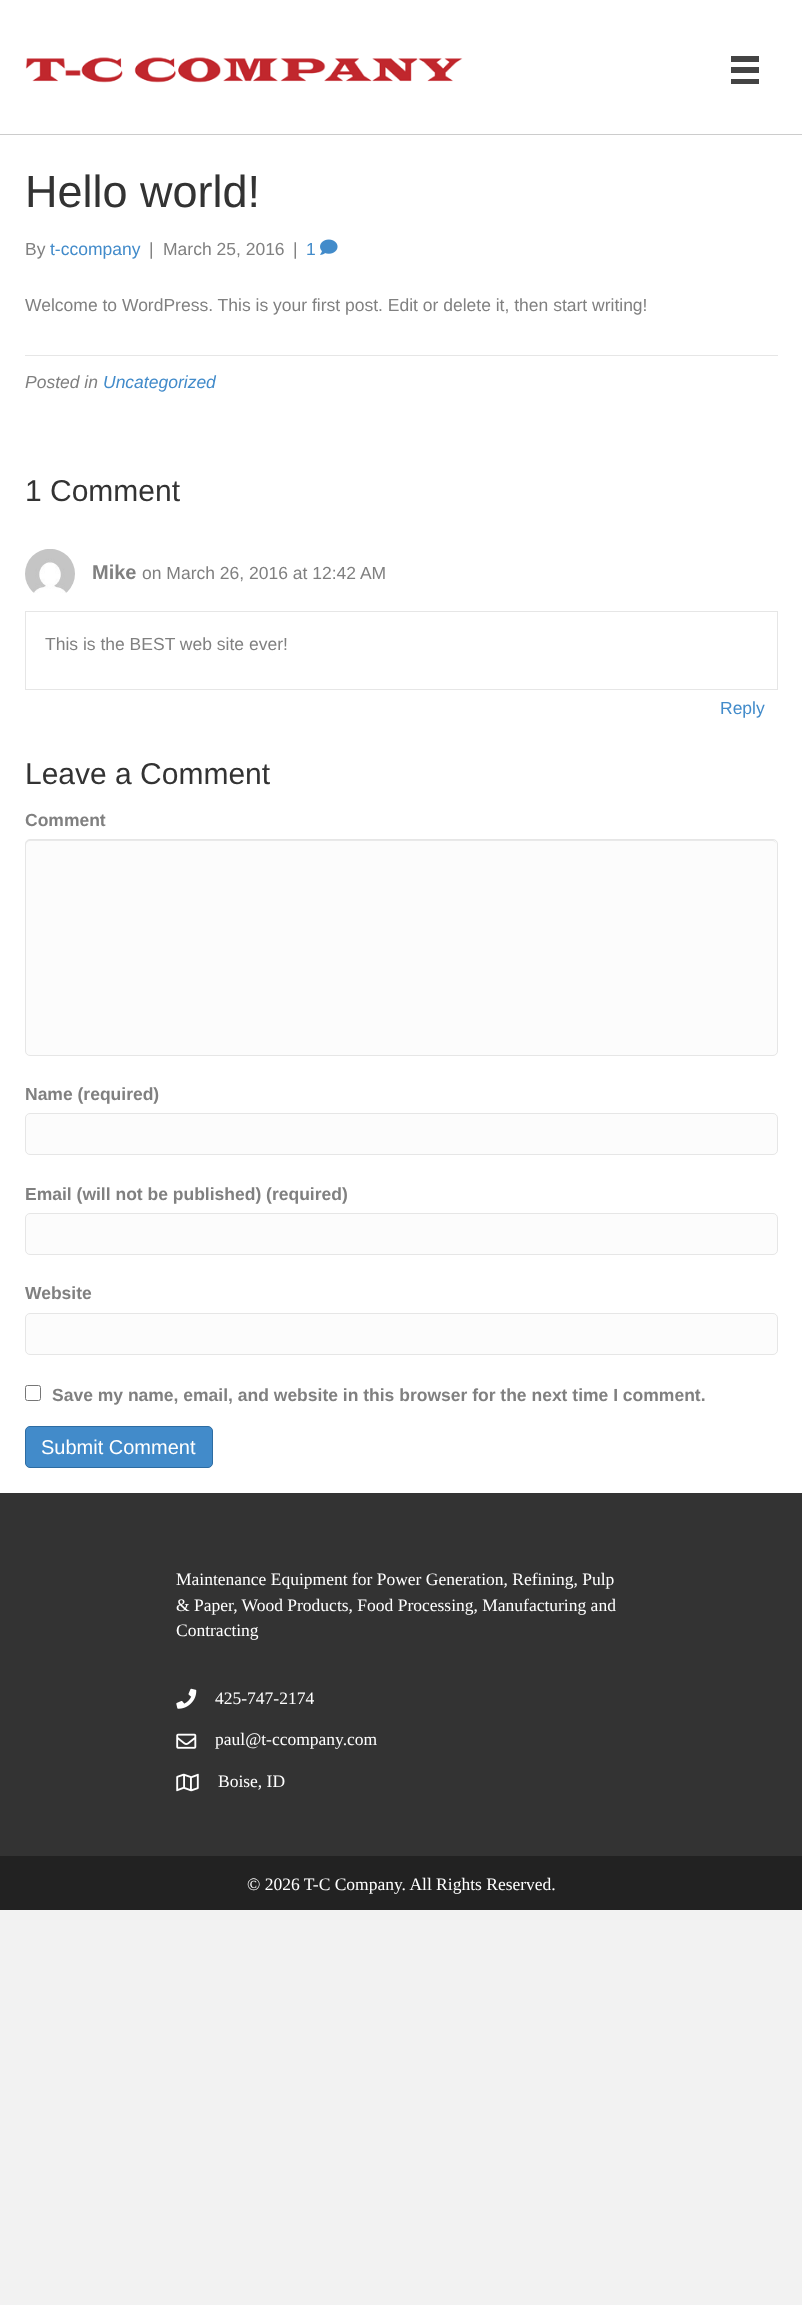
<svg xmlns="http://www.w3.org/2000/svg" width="802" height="2305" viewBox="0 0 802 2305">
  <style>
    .t1 { font: 45px Liberation Sans; fill: #333; }
    .t2 { font: 17.5px Liberation Sans; fill: #808080; }
    .t3 { font: 17.5px Liberation Sans; fill: #428bca; }
    .t4 { font: italic 17.5px Liberation Sans; fill: #808080; }
    .t5 { font: italic 17.5px Liberation Sans; fill: #428bca; }
    .t6 { font: 30px Liberation Sans; fill: #333; }
    .t7 { font: bold 20px Liberation Sans; fill: #808080; }
    .t8 { font: bold 17.5px Liberation Sans; fill: #808080; }
    .t9 { font: 20px Liberation Sans; fill: #fff; }
    .t10 { font: 17.5px Liberation Serif; fill: #fff; }
  </style>
  <rect width="100%" height="100%" fill="#f2f2f2"/>
  <rect x="0" y="0" width="802" height="134" fill="#fff"/>
  <rect x="0" y="134" width="802" height="1" fill="#ccc"/>
  <image x="25" y="57" width="438" height="26" href="images/1.png"/>
  <rect x="731" y="56" width="28" height="6" fill="#444"/>
  <rect x="731" y="67" width="28" height="6" fill="#444"/>
  <rect x="731" y="79" width="28" height="5" fill="#444"/>
  <rect x="0" y="135" width="802" height="1358" fill="#fff"/>
  <text x="25" y="207" class="t1">Hello world!</text>
  <text x="25" y="255" class="t2">By</text>
  <text x="50" y="255" class="t3">t-ccompany</text>
  <text x="149" y="255" class="t2">|</text>
  <text x="163" y="255" class="t2">March 25, 2016</text>
  <text x="293" y="255" class="t2">|</text>
  <text x="306" y="255" class="t3">1</text>
  <image x="320" y="239" width="18" height="16" href="images/2.png"/>
  <text x="25" y="311" class="t2">Welcome to WordPress. This is your first post. Edit or delete it, then start writing!</text>
  <rect x="25" y="355" width="753" height="1" fill="#e6e6e6"/>
  <text x="25" y="388" class="t4">Posted in</text>
  <text x="103" y="388" class="t5">Uncategorized</text>
  <text x="25" y="501" class="t6">1 Comment</text>
  <image x="25" y="549" width="50" height="44" href="images/3.png"/>
  <text x="92" y="579" class="t7">Mike</text>
  <text x="142" y="579" class="t2">on March 26, 2016 at 12:42 AM</text>
  <rect x="25.5" y="611.5" width="752" height="78" fill="none" stroke="#e6e6e6"/>
  <text x="45" y="650" class="t2">This is the BEST web site ever!</text>
  <text x="720" y="714" class="t3">Reply</text>
  <text x="25" y="784" class="t6">Leave a Comment</text>
  <text x="25" y="826" class="t8">Comment</text>
  <rect x="25" y="839" width="753" height="217" rx="5" fill="#fcfcfc"/>
  <path d="M30 841H772C775 841 776 843 776 845C776 842 775 840 772 840H30C27 840 26 842 26 845C26 843 28 841 30 841Z" fill="#e9e9e9"/>
  <rect x="25.5" y="839.5" width="752" height="216" rx="4.5" fill="none" stroke="#e6e6e6"/>
  <text x="25" y="1100" class="t8">Name (required)</text>
  <rect x="25.5" y="1113.5" width="752" height="41" rx="4.5" fill="#fcfcfc" stroke="#e6e6e6"/>
  <text x="25" y="1200" class="t8">Email (will not be published) (required)</text>
  <rect x="25.5" y="1213.5" width="752" height="41" rx="4.5" fill="#fcfcfc" stroke="#e6e6e6"/>
  <text x="25" y="1299" class="t8">Website</text>
  <rect x="25.5" y="1313.5" width="752" height="41" rx="4.5" fill="#fcfcfc" stroke="#e6e6e6"/>
  <rect x="25.5" y="1385.5" width="15" height="15" rx="2" fill="none" stroke="#767676"/>
  <text x="52" y="1401" class="t8">Save my name, email, and website in this browser for the next time I comment.</text>
  <rect x="25.5" y="1426.5" width="187" height="41" rx="4.5" fill="#428bca" stroke="#2d6ca2"/>
  <text x="41" y="1454" class="t9">Submit Comment</text>
  <rect x="0" y="1493" width="802" height="363" fill="#333"/>
  <text x="176" y="1585" class="t10">Maintenance Equipment for Power Generation, Refining, Pulp</text>
  <text x="176" y="1611" class="t10">&amp; Paper, Wood Products, Food Processing, Manufacturing and</text>
  <text x="176" y="1636" class="t10">Contracting</text>
  <image x="176" y="1688" width="21" height="21" href="images/4.png"/>
  <text x="215" y="1704" class="t10">425-747-2174</text>
  <image x="176" y="1733" width="21" height="16" href="images/5.png"/>
  <text x="215" y="1745" class="t10">paul@t-ccompany.com</text>
  <image x="176" y="1773" width="23" height="19" href="images/6.png"/>
  <text x="218" y="1787" class="t10">Boise, ID</text>
  <rect x="0" y="1856" width="802" height="54" fill="#222"/>
  <text x="247" y="1890" class="t10">© 2026 T-C Company. All Rights Reserved.</text>
</svg>
